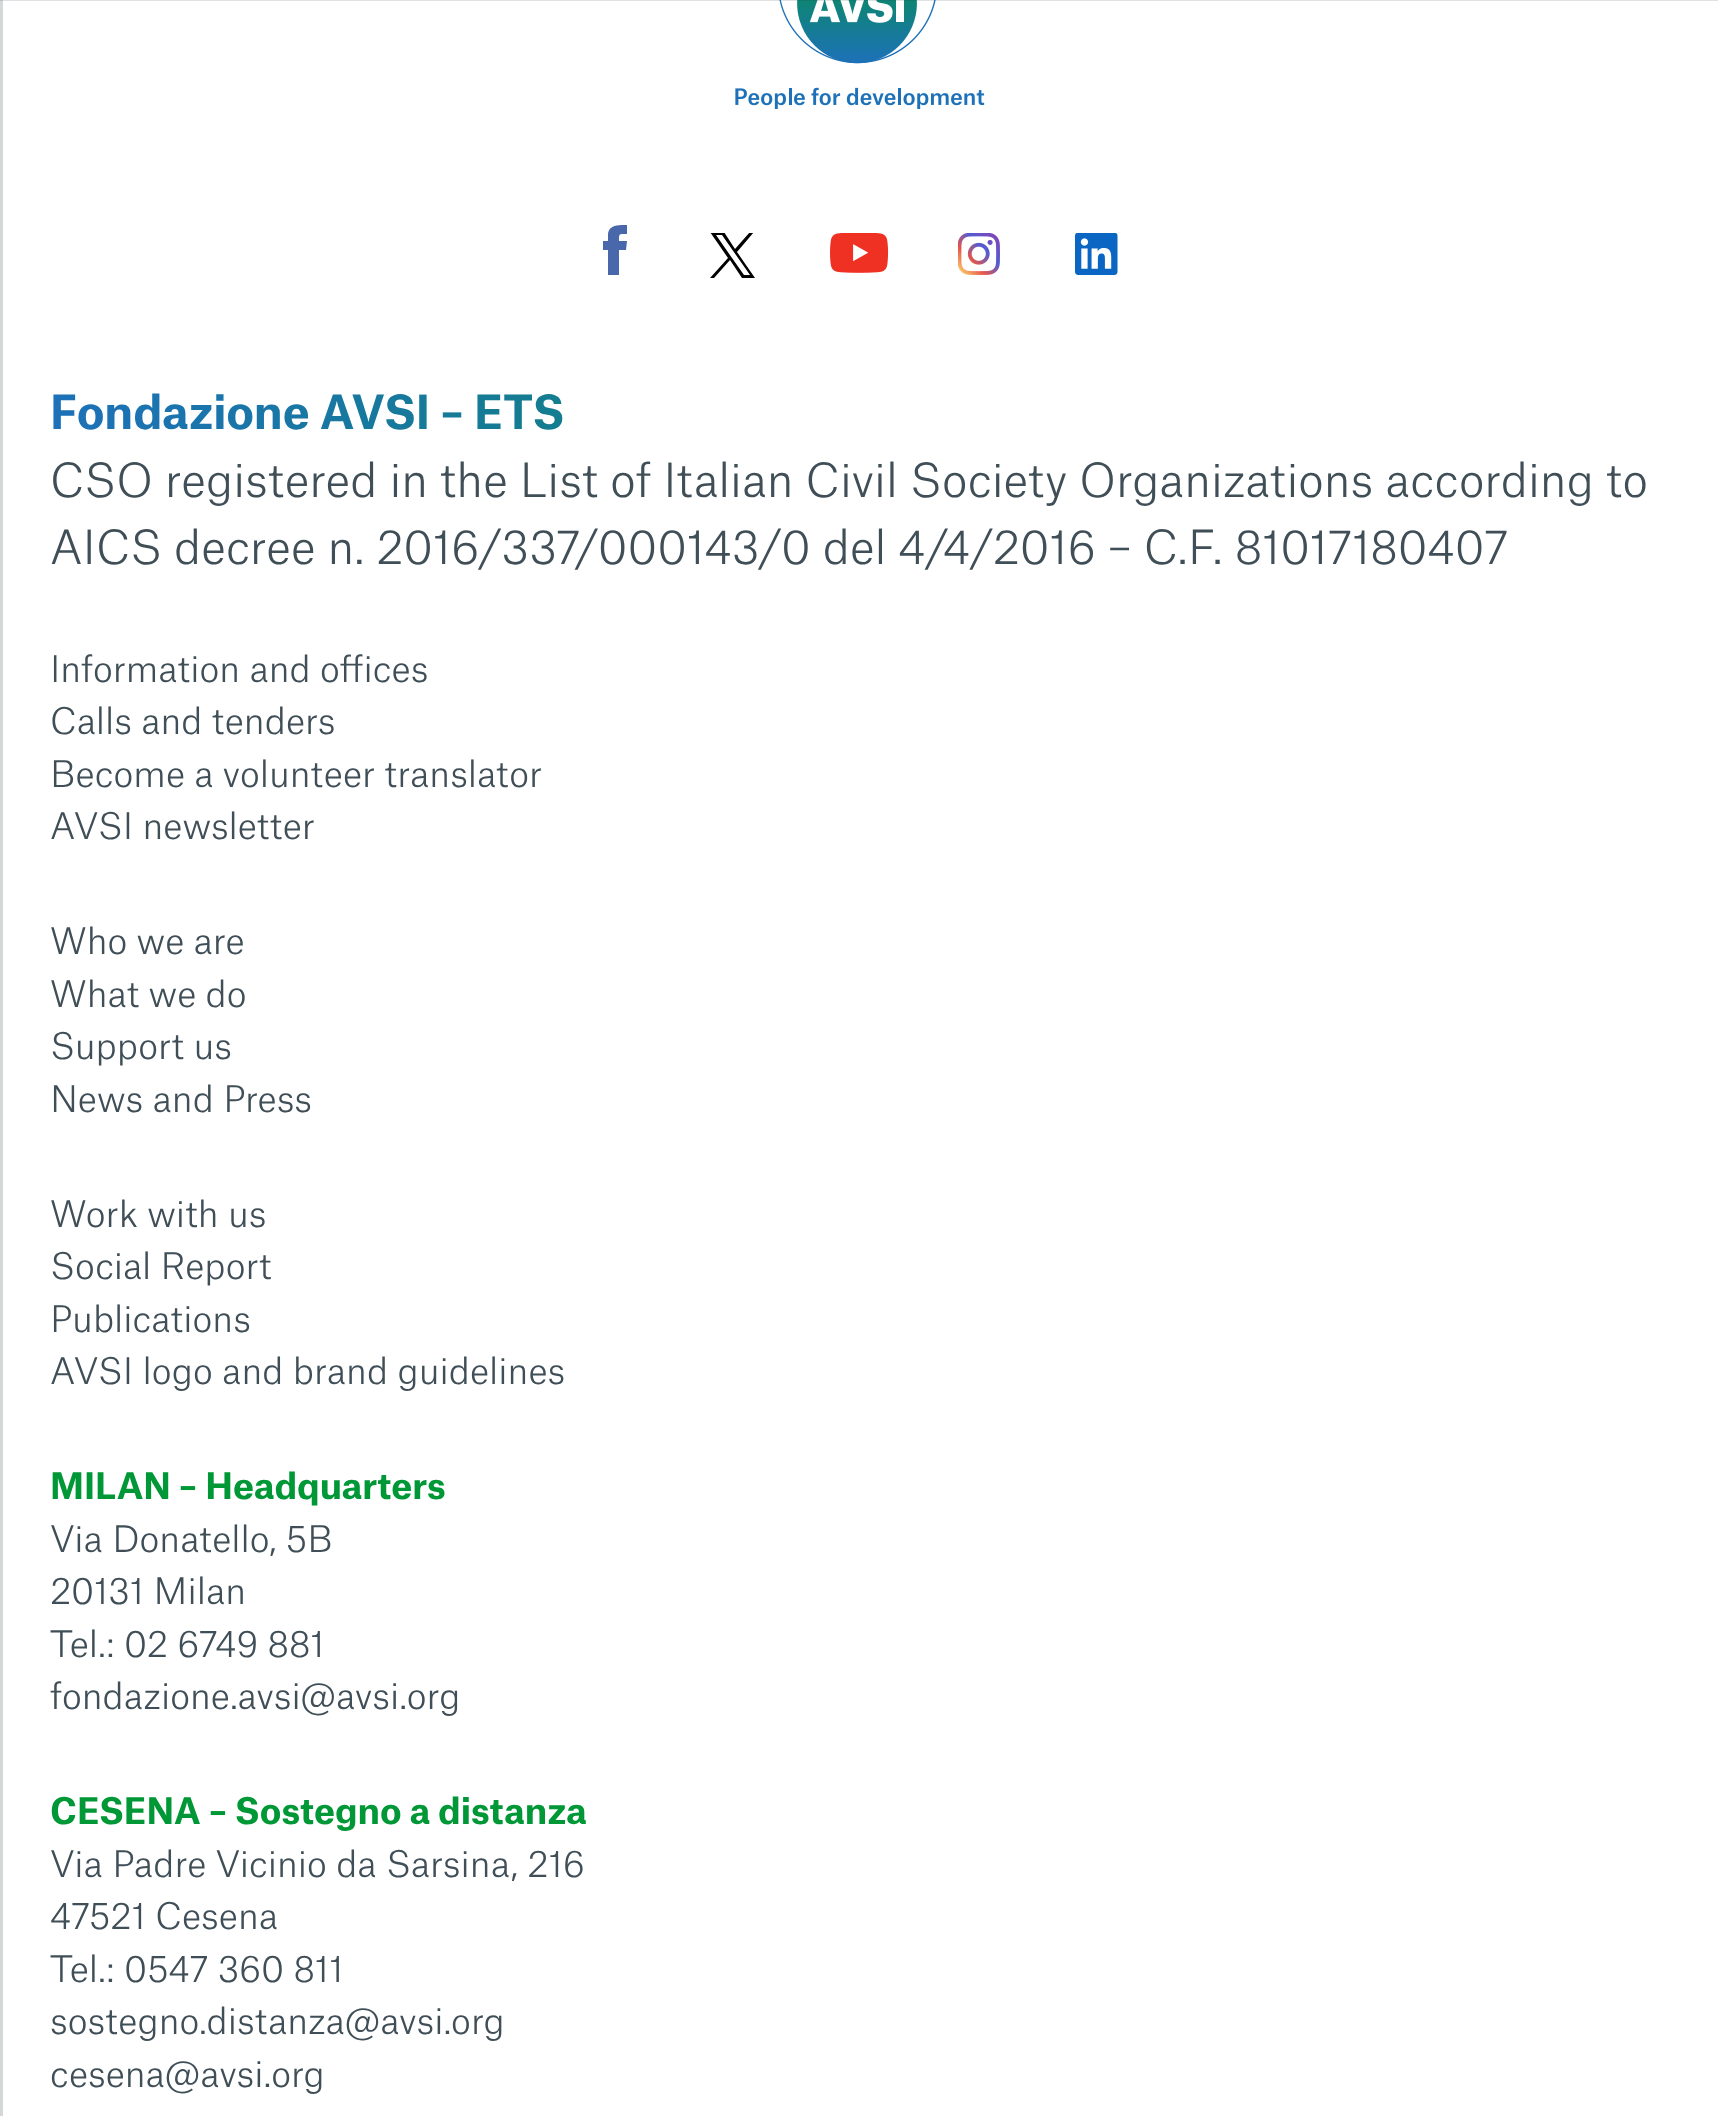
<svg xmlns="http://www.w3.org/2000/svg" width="1718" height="2116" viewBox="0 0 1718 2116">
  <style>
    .t1 { font: bold 45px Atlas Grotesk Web; fill: url(#g1); }
    .t2 { font: 300 45px Atlas Grotesk Web; fill: #404f57; }
    .t3 { font: 300 35px Atlas Grotesk Web; fill: #404f57; }
    .t4 { font: bold 35px Atlas Grotesk Web; fill: #009736; }
  </style>
  <defs>
    <clipPath id="clip1"><rect x="603" y="225" width="25" height="50"/></clipPath>
    <clipPath id="clip2"><rect x="705" y="233" width="55" height="45"/></clipPath>
    <linearGradient id="g1" gradientUnits="userSpaceOnUse" x1="50" y1="411" x2="1670" y2="411"><stop offset="0" stop-color="#1d71b8"/><stop offset="1" stop-color="#009736"/></linearGradient>
  </defs>
  <rect width="100%" height="100%" fill="#fff"/>
  <rect x="0" y="0" width="3" height="2116" fill="#d5d8d9"/>
  <image x="735" y="0" width="250" height="109" href="images/1.png"/>
  <rect x="0" y="0" width="1718" height="1" fill="#2b3b4426"/>
  <g clip-path="url(#clip1)">
    <path d="M608 235C608 224 620 225 627 225V234C619 234 619 233 619 241H627L626 250H619V275H608V250H602V241H608Z" fill="#4868ab"/>
  </g>
  <g clip-path="url(#clip2)">
    <path d="M737 252L754 232H750L735 249L724 232H710L728 258L710 278H714L730 260L742 278H755ZM732 258L716 235H722L750 275H744Z" fill="#000"/>
  </g>
  <image x="830" y="233" width="59" height="40" href="images/2.png"/>
  <image x="958" y="233" width="42" height="42" href="images/3.png"/>
  <image x="1075" y="233" width="43" height="42" href="images/4.png"/>
  <text x="50" y="429" class="t1">Fondazione AVSI – ETS</text>
  <text x="50" y="497" class="t2">CSO registered in the List of Italian Civil Society Organizations according to</text>
  <text x="50" y="564" class="t2">AICS decree n. 2016/337/000143/0 del 4/4/2016 – C.F. 81017180407</text>
  <text x="50" y="682" class="t3">Information and offices</text>
  <text x="50" y="734" class="t3">Calls and tenders</text>
  <text x="50" y="787" class="t3">Become a volunteer translator</text>
  <text x="50" y="839" class="t3">AVSI newsletter</text>
  <text x="50" y="954" class="t3">Who we are</text>
  <text x="50" y="1007" class="t3">What we do</text>
  <text x="50" y="1059" class="t3">Support us</text>
  <text x="50" y="1112" class="t3">News and Press</text>
  <text x="50" y="1227" class="t3">Work with us</text>
  <text x="50" y="1279" class="t3">Social Report</text>
  <text x="50" y="1332" class="t3">Publications</text>
  <text x="50" y="1384" class="t3">AVSI logo and brand guidelines</text>
  <text x="50" y="1499" class="t4">MILAN – Headquarters</text>
  <text x="50" y="1552" class="t3">Via Donatello, 5B</text>
  <text x="50" y="1604" class="t3">20131 Milan</text>
  <text x="50" y="1657" class="t3">Tel.: 02 6749 881</text>
  <text x="50" y="1709" class="t3">fondazione.avsi@avsi.org</text>
  <text x="50" y="1824" class="t4">CESENA – Sostegno a distanza</text>
  <text x="50" y="1877" class="t3">Via Padre Vicinio da Sarsina, 216</text>
  <text x="50" y="1929" class="t3">47521 Cesena</text>
  <text x="50" y="1982" class="t3">Tel.: 0547 360 811</text>
  <text x="50" y="2034" class="t3">sostegno.distanza@avsi.org</text>
  <text x="50" y="2087" class="t3">cesena@avsi.org</text>
</svg>
